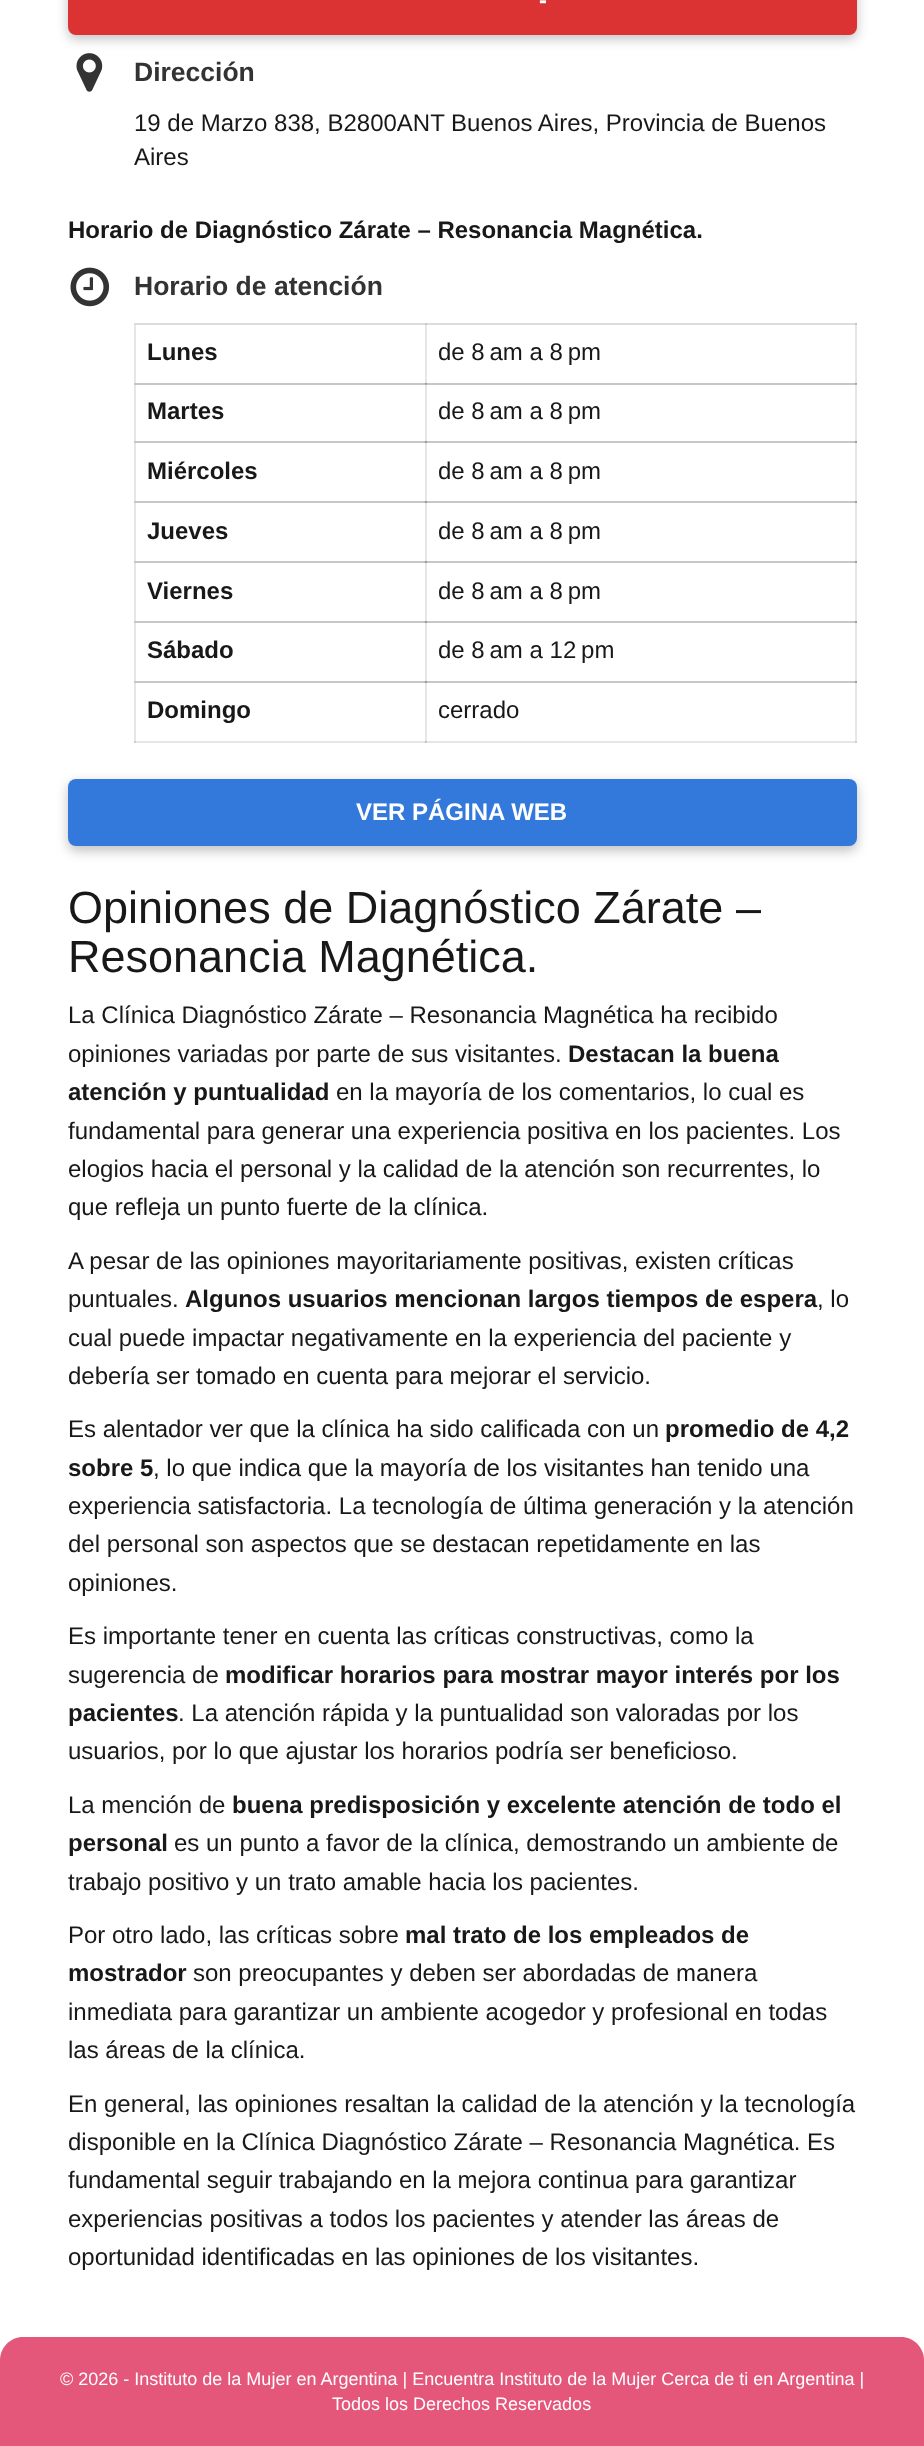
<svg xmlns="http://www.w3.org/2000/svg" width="924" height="2446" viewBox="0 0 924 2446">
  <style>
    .t1 { font: bold 24px Liberation Sans; fill: #fff; }
    .t2 { font: bold 26.5px Liberation Sans; fill: #333; }
    .t3 { font: 24px Liberation Sans; fill: #181818; }
    .t4 { font: bold 24px Liberation Sans; fill: #181818; }
    .t5 { font: 45px Liberation Sans; fill: #181818; }
    .t6 { font: 18px Liberation Sans; fill: #fff; }
  </style>
  <rect width="100%" height="100%" fill="#fff"/>
  <rect x="425" y="323" width="2" height="360" fill="#e6e6e6"/>
  <rect x="855" y="323" width="2" height="360" fill="#e6e6e6"/>
  <rect x="134" y="741" width="292" height="2" fill="#e6e6e6"/>
  <rect x="425" y="681" width="2" height="62" fill="#e6e6e6"/>
  <rect x="425" y="741" width="432" height="2" fill="#e6e6e6"/>
  <rect x="425" y="741" width="2" height="2" fill="#cfcfcf"/>
  <rect x="425" y="741" width="1" height="2" fill="#bababa"/>
  <rect x="855" y="681" width="2" height="62" fill="#e6e6e6"/>
  <rect x="855" y="741" width="2" height="2" fill="#cfcfcf"/>
  <rect x="134" y="323" width="2" height="420" fill="#e6e6e6"/>
  <rect x="134" y="741" width="2" height="2" fill="#cfcfcf"/>
  <rect x="68" y="-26" width="789" height="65" rx="8" fill="#0000003d" filter="blur(6px)"/>
  <rect x="68" y="-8" width="789" height="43" rx="8" fill="#db3333"/>
  <text x="539" y="8" class="t1">-</text>
  <image x="76" y="53" width="27" height="39" href="images/1.png"/>
  <text x="134" y="81" class="t2">Dirección</text>
  <text x="134" y="131" class="t3">19 de Marzo 838, B2800ANT Buenos Aires, Provincia de Buenos</text>
  <text x="134" y="165" class="t3">Aires</text>
  <text x="68" y="238" class="t4">Horario de Diagnóstico Zárate – Resonancia Magnética.</text>
  <image x="70" y="267" width="40" height="40" href="images/2.png"/>
  <text x="134" y="295" class="t2">Horario de atención</text>
  <rect x="425" y="323" width="432" height="2" fill="#ddd"/>
  <rect x="425" y="323" width="2" height="2" fill="#c7c7c7"/>
  <rect x="134" y="323" width="292" height="2" fill="#ddd"/>
  <rect x="425" y="323" width="1" height="2" fill="#c7c7c7"/>
  <text x="147" y="360" class="t4">Lunes</text>
  <rect x="855" y="323" width="2" height="2" fill="#c7c7c7"/>
  <text x="438" y="360" class="t3">de 8 am a 8 pm</text>
  <rect x="425" y="383" width="432" height="2" fill="#c7c7c7"/>
  <rect x="425" y="384" width="2" height="1" fill="#b3b3b3"/>
  <rect x="425" y="383" width="2" height="1" fill="#a1a1a1"/>
  <rect x="134" y="383" width="292" height="2" fill="#c7c7c7"/>
  <rect x="425" y="383" width="1" height="2" fill="#a1a1a1"/>
  <rect x="425" y="383" width="1" height="1" fill="#919191"/>
  <text x="147" y="419" class="t4">Martes</text>
  <rect x="855" y="384" width="2" height="1" fill="#b3b3b3"/>
  <rect x="855" y="383" width="2" height="1" fill="#a1a1a1"/>
  <text x="438" y="419" class="t3">de 8 am a 8 pm</text>
  <rect x="425" y="441" width="432" height="2" fill="#c7c7c7"/>
  <rect x="425" y="441" width="2" height="2" fill="#a1a1a1"/>
  <rect x="134" y="441" width="292" height="2" fill="#c7c7c7"/>
  <rect x="425" y="441" width="1" height="2" fill="#919191"/>
  <text x="147" y="479" class="t4">Miércoles</text>
  <rect x="855" y="441" width="2" height="2" fill="#a1a1a1"/>
  <text x="438" y="479" class="t3">de 8 am a 8 pm</text>
  <rect x="425" y="501" width="432" height="2" fill="#c7c7c7"/>
  <rect x="425" y="501" width="2" height="2" fill="#a1a1a1"/>
  <rect x="134" y="501" width="292" height="2" fill="#c7c7c7"/>
  <rect x="425" y="501" width="1" height="2" fill="#919191"/>
  <text x="147" y="539" class="t4">Jueves</text>
  <rect x="855" y="501" width="2" height="2" fill="#a1a1a1"/>
  <text x="438" y="539" class="t3">de 8 am a 8 pm</text>
  <rect x="425" y="561" width="432" height="2" fill="#c7c7c7"/>
  <rect x="425" y="561" width="2" height="2" fill="#a1a1a1"/>
  <rect x="134" y="561" width="292" height="2" fill="#c7c7c7"/>
  <rect x="425" y="561" width="1" height="2" fill="#919191"/>
  <text x="147" y="599" class="t4">Viernes</text>
  <rect x="855" y="561" width="2" height="2" fill="#a1a1a1"/>
  <text x="438" y="599" class="t3">de 8 am a 8 pm</text>
  <rect x="425" y="621" width="432" height="2" fill="#c7c7c7"/>
  <rect x="425" y="621" width="2" height="2" fill="#a1a1a1"/>
  <rect x="134" y="621" width="292" height="2" fill="#c7c7c7"/>
  <rect x="425" y="621" width="1" height="2" fill="#919191"/>
  <text x="147" y="658" class="t4">Sábado</text>
  <rect x="855" y="621" width="2" height="2" fill="#a1a1a1"/>
  <text x="438" y="658" class="t3">de 8 am a 12 pm</text>
  <rect x="425" y="681" width="432" height="2" fill="#c7c7c7"/>
  <rect x="425" y="681" width="2" height="2" fill="#a1a1a1"/>
  <rect x="134" y="681" width="292" height="2" fill="#c7c7c7"/>
  <rect x="425" y="681" width="1" height="2" fill="#919191"/>
  <text x="147" y="718" class="t4">Domingo</text>
  <rect x="855" y="681" width="2" height="2" fill="#a1a1a1"/>
  <text x="438" y="718" class="t3">cerrado</text>
  <rect x="68" y="783" width="789" height="68" rx="8" fill="#0000003d" filter="blur(6px)"/>
  <rect x="68" y="779" width="789" height="67" rx="8" fill="#3379db"/>
  <text x="356" y="820" class="t1">VER PÁGINA WEB</text>
  <text x="68" y="923" class="t5">Opiniones de Diagnóstico Zárate –</text>
  <text x="68" y="972" class="t5">Resonancia Magnética.</text>
  <text x="68" y="1023" class="t3">La Clínica Diagnóstico Zárate – Resonancia Magnética ha recibido</text>
  <text x="68" y="1062" class="t3">opiniones variadas por parte de sus visitantes.</text>
  <text x="568" y="1062" class="t4">Destacan la buena</text>
  <text x="68" y="1100" class="t4">atención y puntualidad</text>
  <text x="336" y="1100" class="t3">en la mayoría de los comentarios, lo cual es</text>
  <text x="68" y="1139" class="t3">fundamental para generar una experiencia positiva en los pacientes. Los</text>
  <text x="68" y="1177" class="t3">elogios hacia el personal y la calidad de la atención son recurrentes, lo</text>
  <text x="68" y="1215" class="t3">que refleja un punto fuerte de la clínica.</text>
  <text x="68" y="1269" class="t3">A pesar de las opiniones mayoritariamente positivas, existen críticas</text>
  <text x="68" y="1307" class="t3">puntuales.</text>
  <text x="185" y="1307" class="t4">Algunos usuarios mencionan largos tiempos de espera</text>
  <text x="817" y="1307" class="t3">, lo</text>
  <text x="68" y="1346" class="t3">cual puede impactar negativamente en la experiencia del paciente y</text>
  <text x="68" y="1384" class="t3">debería ser tomado en cuenta para mejorar el servicio.</text>
  <text x="68" y="1437" class="t3">Es alentador ver que la clínica ha sido calificada con un</text>
  <text x="665" y="1437" class="t4">promedio de 4,2</text>
  <text x="68" y="1476" class="t4">sobre 5</text>
  <text x="153" y="1476" class="t3">, lo que indica que la mayoría de los visitantes han tenido una</text>
  <text x="68" y="1514" class="t3">experiencia satisfactoria. La tecnología de última generación y la atención</text>
  <text x="68" y="1552" class="t3">del personal son aspectos que se destacan repetidamente en las</text>
  <text x="68" y="1591" class="t3">opiniones.</text>
  <text x="68" y="1644" class="t3">Es importante tener en cuenta las críticas constructivas, como la</text>
  <text x="68" y="1683" class="t3">sugerencia de</text>
  <text x="225" y="1683" class="t4">modificar horarios para mostrar mayor interés por los</text>
  <text x="68" y="1721" class="t4">pacientes</text>
  <text x="178" y="1721" class="t3">. La atención rápida y la puntualidad son valoradas por los</text>
  <text x="68" y="1759" class="t3">usuarios, por lo que ajustar los horarios podría ser beneficioso.</text>
  <text x="68" y="1813" class="t3">La mención de</text>
  <text x="232" y="1813" class="t4">buena predisposición y excelente atención de todo el</text>
  <text x="68" y="1851" class="t4">personal</text>
  <text x="174" y="1851" class="t3">es un punto a favor de la clínica, demostrando un ambiente de</text>
  <text x="68" y="1890" class="t3">trabajo positivo y un trato amable hacia los pacientes.</text>
  <text x="68" y="1943" class="t3">Por otro lado, las críticas sobre</text>
  <text x="405" y="1943" class="t4">mal trato de los empleados de</text>
  <text x="68" y="1981" class="t4">mostrador</text>
  <text x="193" y="1981" class="t3">son preocupantes y deben ser abordadas de manera</text>
  <text x="68" y="2020" class="t3">inmediata para garantizar un ambiente acogedor y profesional en todas</text>
  <text x="68" y="2058" class="t3">las áreas de la clínica.</text>
  <text x="68" y="2112" class="t3">En general, las opiniones resaltan la calidad de la atención y la tecnología</text>
  <text x="68" y="2150" class="t3">disponible en la Clínica Diagnóstico Zárate – Resonancia Magnética. Es</text>
  <text x="68" y="2188" class="t3">fundamental seguir trabajando en la mejora continua para garantizar</text>
  <text x="68" y="2227" class="t3">experiencias positivas a todos los pacientes y atender las áreas de</text>
  <text x="68" y="2265" class="t3">oportunidad identificadas en las opiniones de los visitantes.</text>
  <path d="M23 2337H901C913.5 2337 924 2347.5 924 2360V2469H0V2360C0 2347.5 10.5 2337 23 2337Z" fill="#e4567a"/>
  <text x="60" y="2385" class="t6">© 2026 - Instituto de la Mujer en Argentina | Encuentra Instituto de la Mujer Cerca de ti en Argentina |</text>
  <text x="332" y="2410" class="t6">Todos los Derechos Reservados</text>
</svg>
